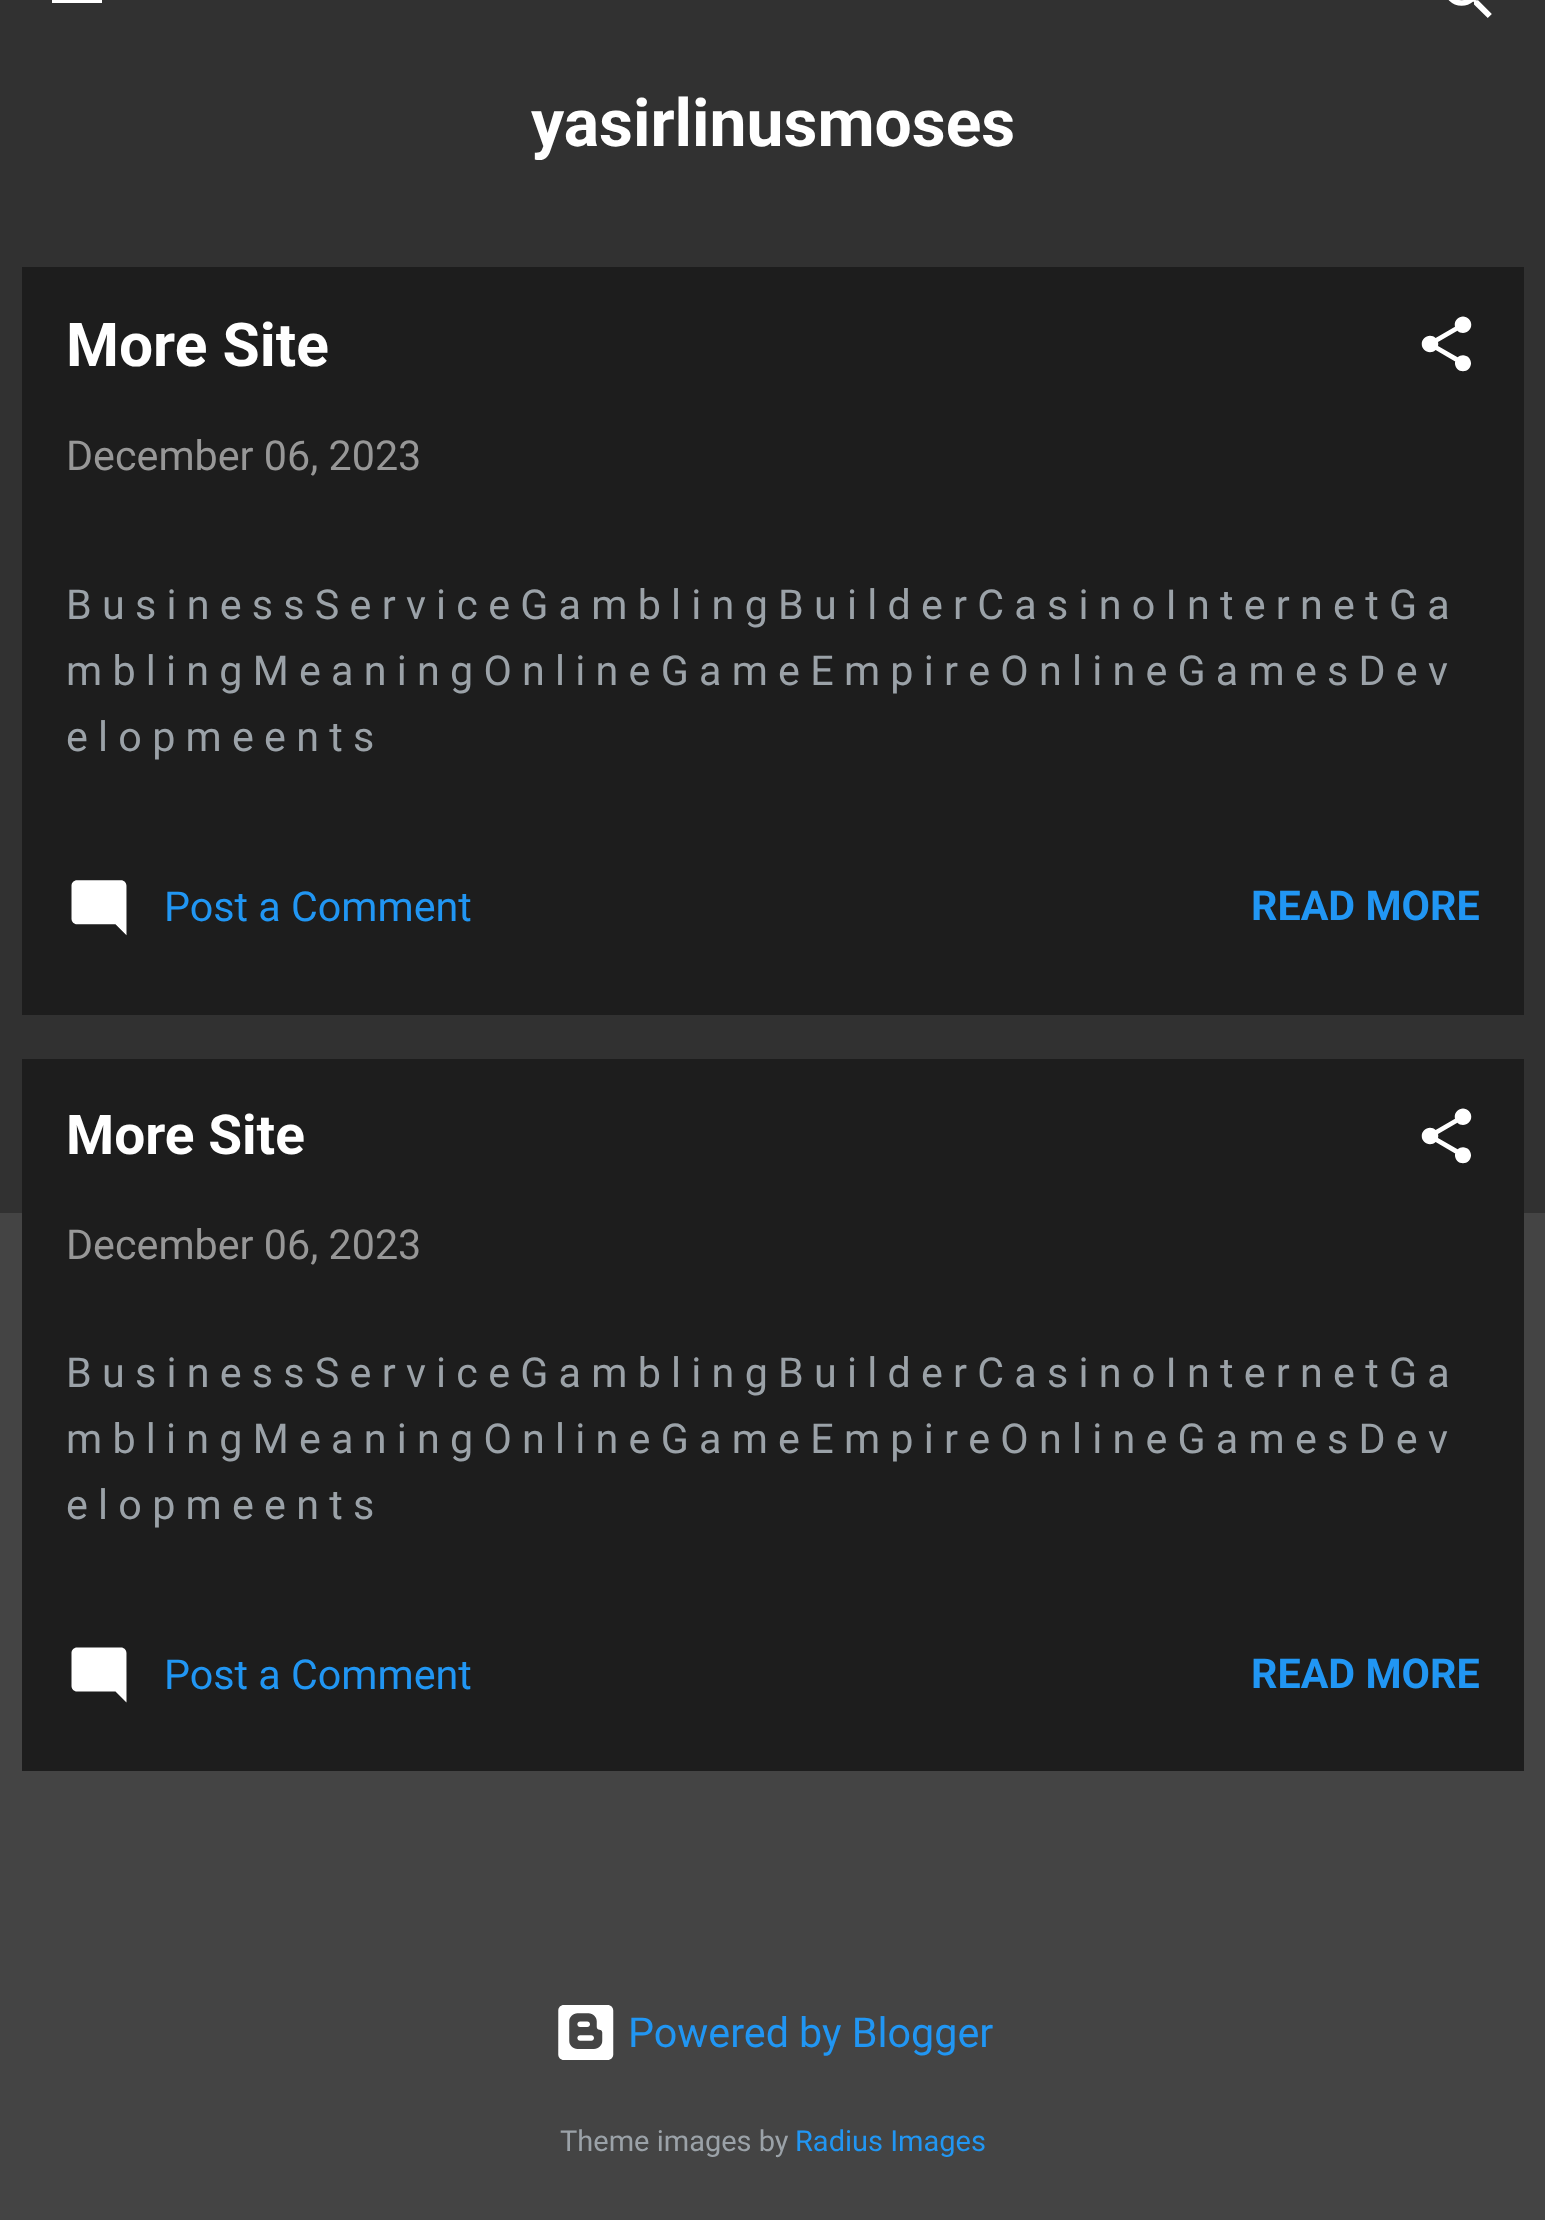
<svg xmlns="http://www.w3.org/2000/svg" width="1545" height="2220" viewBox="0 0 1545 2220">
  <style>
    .t1 { font: bold 66px Roboto; fill: #fff; }
    .t2 { font: bold 60.5px Roboto; fill: #fff; }
    .t3 { font: 41.25px Roboto; fill: #979797; }
    .t4 { font: 41.25px Roboto; fill: #9ba2a8; }
    .t5 { font: 41.25px Roboto; fill: #2196f3; }
    .t6 { font: bold 41.25px Roboto; fill: #2196f3; }
    .t7 { font: bold 55px Roboto; fill: #fff; }
    .t8 { font: 29px Roboto; fill: #9ba2a8; }
    .t9 { font: 29px Roboto; fill: #2196f3; }
  </style>
  <rect width="100%" height="100%" fill="#444"/>
  <rect x="0" y="0" width="1545" height="1213" fill="#313131"/>
  <rect x="52" y="0" width="50" height="3" fill="#fff"/>
  <image x="1448" y="0" width="44" height="18" href="images/1.png"/>
  <text x="531" y="146" class="t1">yasirlinusmoses</text>
  <rect x="22" y="267" width="1502" height="748" fill="#1d1d1d"/>
  <text x="66" y="366" class="t2">More Site</text>
  <image x="1421" y="316" width="51" height="56" href="images/2.png"/>
  <text x="66" y="470" class="t3">December 06, 2023</text>
  <text x="66" y="619" class="t4">B u s i n e s s S e r v i c e G a m b l i n g B u i l d e r C a s i n o I n t e r n e t G a</text>
  <text x="66" y="685" class="t4">m b l i n g M e a n i n g O n l i n e G a m e E m p i r e O n l i n e G a m e s D e v</text>
  <text x="66" y="751" class="t4">e l o p m e e n t s</text>
  <image x="71" y="880" width="56" height="56" href="images/3.png"/>
  <text x="164" y="921" class="t5">Post a Comment</text>
  <text x="1251" y="920" class="t6">READ MORE</text>
  <rect x="22" y="1059" width="1502" height="712" fill="#1d1d1d"/>
  <text x="66" y="1154" class="t7">More Site</text>
  <image x="1421" y="1108" width="51" height="56" href="images/2.png"/>
  <text x="66" y="1259" class="t3">December 06, 2023</text>
  <text x="66" y="1387" class="t4">B u s i n e s s S e r v i c e G a m b l i n g B u i l d e r C a s i n o I n t e r n e t G a</text>
  <text x="66" y="1453" class="t4">m b l i n g M e a n i n g O n l i n e G a m e E m p i r e O n l i n e G a m e s D e v</text>
  <text x="66" y="1519" class="t4">e l o p m e e n t s</text>
  <image x="71" y="1647" width="56" height="56" href="images/4.png"/>
  <text x="164" y="1689" class="t5">Post a Comment</text>
  <text x="1251" y="1688" class="t6">READ MORE</text>
  <image x="558" y="2005" width="56" height="55" href="images/5.png"/>
  <text x="628" y="2047" class="t5">Powered by Blogger</text>
  <text x="560" y="2151" class="t8">Theme images by</text>
  <text x="795" y="2151" class="t9">Radius Images</text>
</svg>
